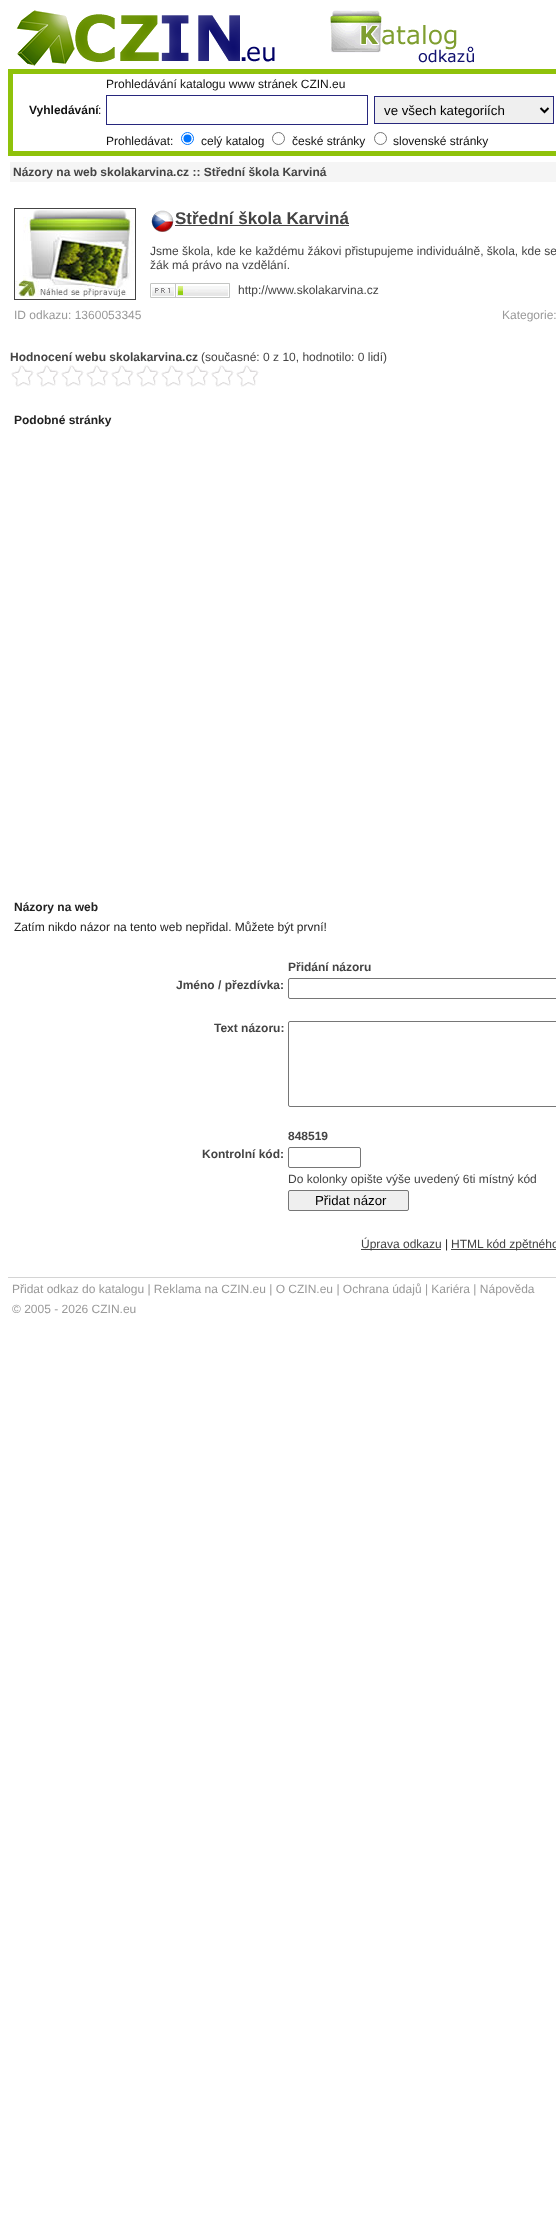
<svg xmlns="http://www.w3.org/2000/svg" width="556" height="2235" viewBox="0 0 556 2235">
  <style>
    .t1 { font: 12px Liberation Sans; fill: #111; }
    .t2 { font: bold 12px Liberation Sans; fill: #111; }
    .t3 { font: 13.25px Liberation Sans; fill: #000; }
    .t4 { font: bold 12px Liberation Sans; fill: #444; }
    .t5 { font: bold 17px Liberation Sans; fill: #444; }
    .t6 { font: 12px Liberation Sans; fill: #444; }
    .t7 { font: 12px Liberation Sans; fill: #999; }
    .t8 { font: bold 12px Liberation Sans; fill: #222; }
    .t9 { font: 12px Liberation Sans; fill: #222; }
  </style>
  <rect width="100%" height="100%" fill="#fff"/>
  <image x="16" y="10" width="259" height="56" href="images/1.png"/>
  <image x="330" y="10" width="144" height="53" href="images/2.png"/>
  <rect x="8" y="69" width="548" height="87" fill="#8fc20a"/>
  <rect x="13" y="74" width="543" height="77" fill="#fff"/>
  <text x="106" y="88" class="t1">Prohledávání katalogu www stránek CZIN.eu</text>
  <text x="29" y="114" class="t2">Vyhledávání</text>
  <text x="98" y="114" class="t1">:</text>
  <rect x="106.5" y="95.5" width="261" height="29" fill="none" stroke="#27277d"/>
  <rect x="374.5" y="96.5" width="179" height="27" fill="#efefef" stroke="#27277d"/>
  <path d="M540.5 108L544.5 112L548.5 108" fill="none" stroke="#000" stroke-width="2"/>
  <text x="384" y="115" class="t3">ve všech kategoriích</text>
  <text x="106" y="145" class="t1">Prohledávat:</text>
  <circle cx="187.5" cy="138.5" r="6" fill="none" stroke="#0075ff"/>
  <circle cx="187.5" cy="138.5" r="4" fill="#0075ff"/>
  <text x="201" y="145" class="t1">celý katalog</text>
  <circle cx="278.5" cy="138.5" r="6" fill="none" stroke="#767676"/>
  <text x="292" y="145" class="t1">české stránky</text>
  <circle cx="380.5" cy="138.5" r="6" fill="none" stroke="#767676"/>
  <text x="393" y="145" class="t1">slovenské stránky</text>
  <rect x="10" y="162" width="546" height="20" fill="#f5f5f5"/>
  <text x="13" y="176" class="t4">Názory na web skolakarvina.cz :: Střední škola Karviná</text>
  <rect x="14.5" y="208.5" width="121" height="91" fill="none" stroke="#444"/>
  <image x="15" y="210" width="120" height="87" href="images/3.png"/>
  <image x="151" y="210" width="23" height="22" href="images/4.png"/>
  <text x="175" y="224" class="t5">Střední škola Karviná</text>
  <rect x="175" y="225" width="174" height="1" fill="#444"/>
  <text x="150" y="255" class="t6">Jsme škola, kde ke každému žákovi přistupujeme individuálně, škola, kde se</text>
  <text x="150" y="269" class="t6">žák má právo na vzdělání.</text>
  <image x="150" y="283" width="80" height="15" href="images/5.png"/>
  <text x="238" y="294" class="t6">http://www.skolakarvina.cz</text>
  <text x="14" y="319" class="t7">ID odkazu: 1360053345</text>
  <text x="502" y="319" class="t7">Kategorie:</text>
  <text x="10" y="361" class="t4">Hodnocení webu skolakarvina.cz</text>
  <text x="201" y="361" class="t6">(současné: 0 z 10, hodnotilo: 0 lidí)</text>
  <image x="11" y="365" width="248" height="22" href="images/6.png"/>
  <text x="14" y="424" class="t8">Podobné stránky</text>
  <text x="14" y="911" class="t8">Názory na web</text>
  <text x="14" y="931" class="t9">Zatím nikdo názor na tento web nepřidal. Můžete být první!</text>
  <text x="288" y="971" class="t4">Přidání názoru</text>
  <text x="176" y="989" class="t4">Jméno / přezdívka:</text>
  <rect x="288.5" y="978.5" width="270" height="20" rx="1.5" fill="none" stroke="#767676"/>
  <text x="214" y="1032" class="t4">Text názoru:</text>
  <rect x="288.5" y="1021.5" width="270" height="85" rx="1.5" fill="none" stroke="#767676"/>
  <text x="288" y="1140" class="t4">848519</text>
  <text x="202" y="1158" class="t4">Kontrolní kód:</text>
  <rect x="288.5" y="1147.5" width="72" height="20" rx="1.5" fill="none" stroke="#767676"/>
  <text x="288" y="1183" class="t6">Do kolonky opište výše uvedený 6ti místný kód</text>
  <rect x="288.5" y="1190.5" width="120" height="20" rx="1.5" fill="#efefef" stroke="#767676"/>
  <text x="315" y="1205" class="t3">Přidat názor</text>
  <rect x="361" y="1249" width="80" height="1" fill="#444"/>
  <text x="361" y="1248" class="t6">Úprava odkazu</text>
  <text x="445" y="1248" class="t9">|</text>
  <rect x="451" y="1249" width="105" height="1" fill="#444"/>
  <text x="451" y="1248" class="t6">HTML kód zpětného</text>
  <rect x="8" y="1277" width="548" height="1" fill="#d4d4d4"/>
  <text x="12" y="1293" class="t7">Přidat odkaz do katalogu | Reklama na CZIN.eu | O CZIN.eu | Ochrana údajů | Kariéra | Nápověda</text>
  <text x="12" y="1313" class="t7">© 2005 - 2026 CZIN.eu</text>
</svg>
